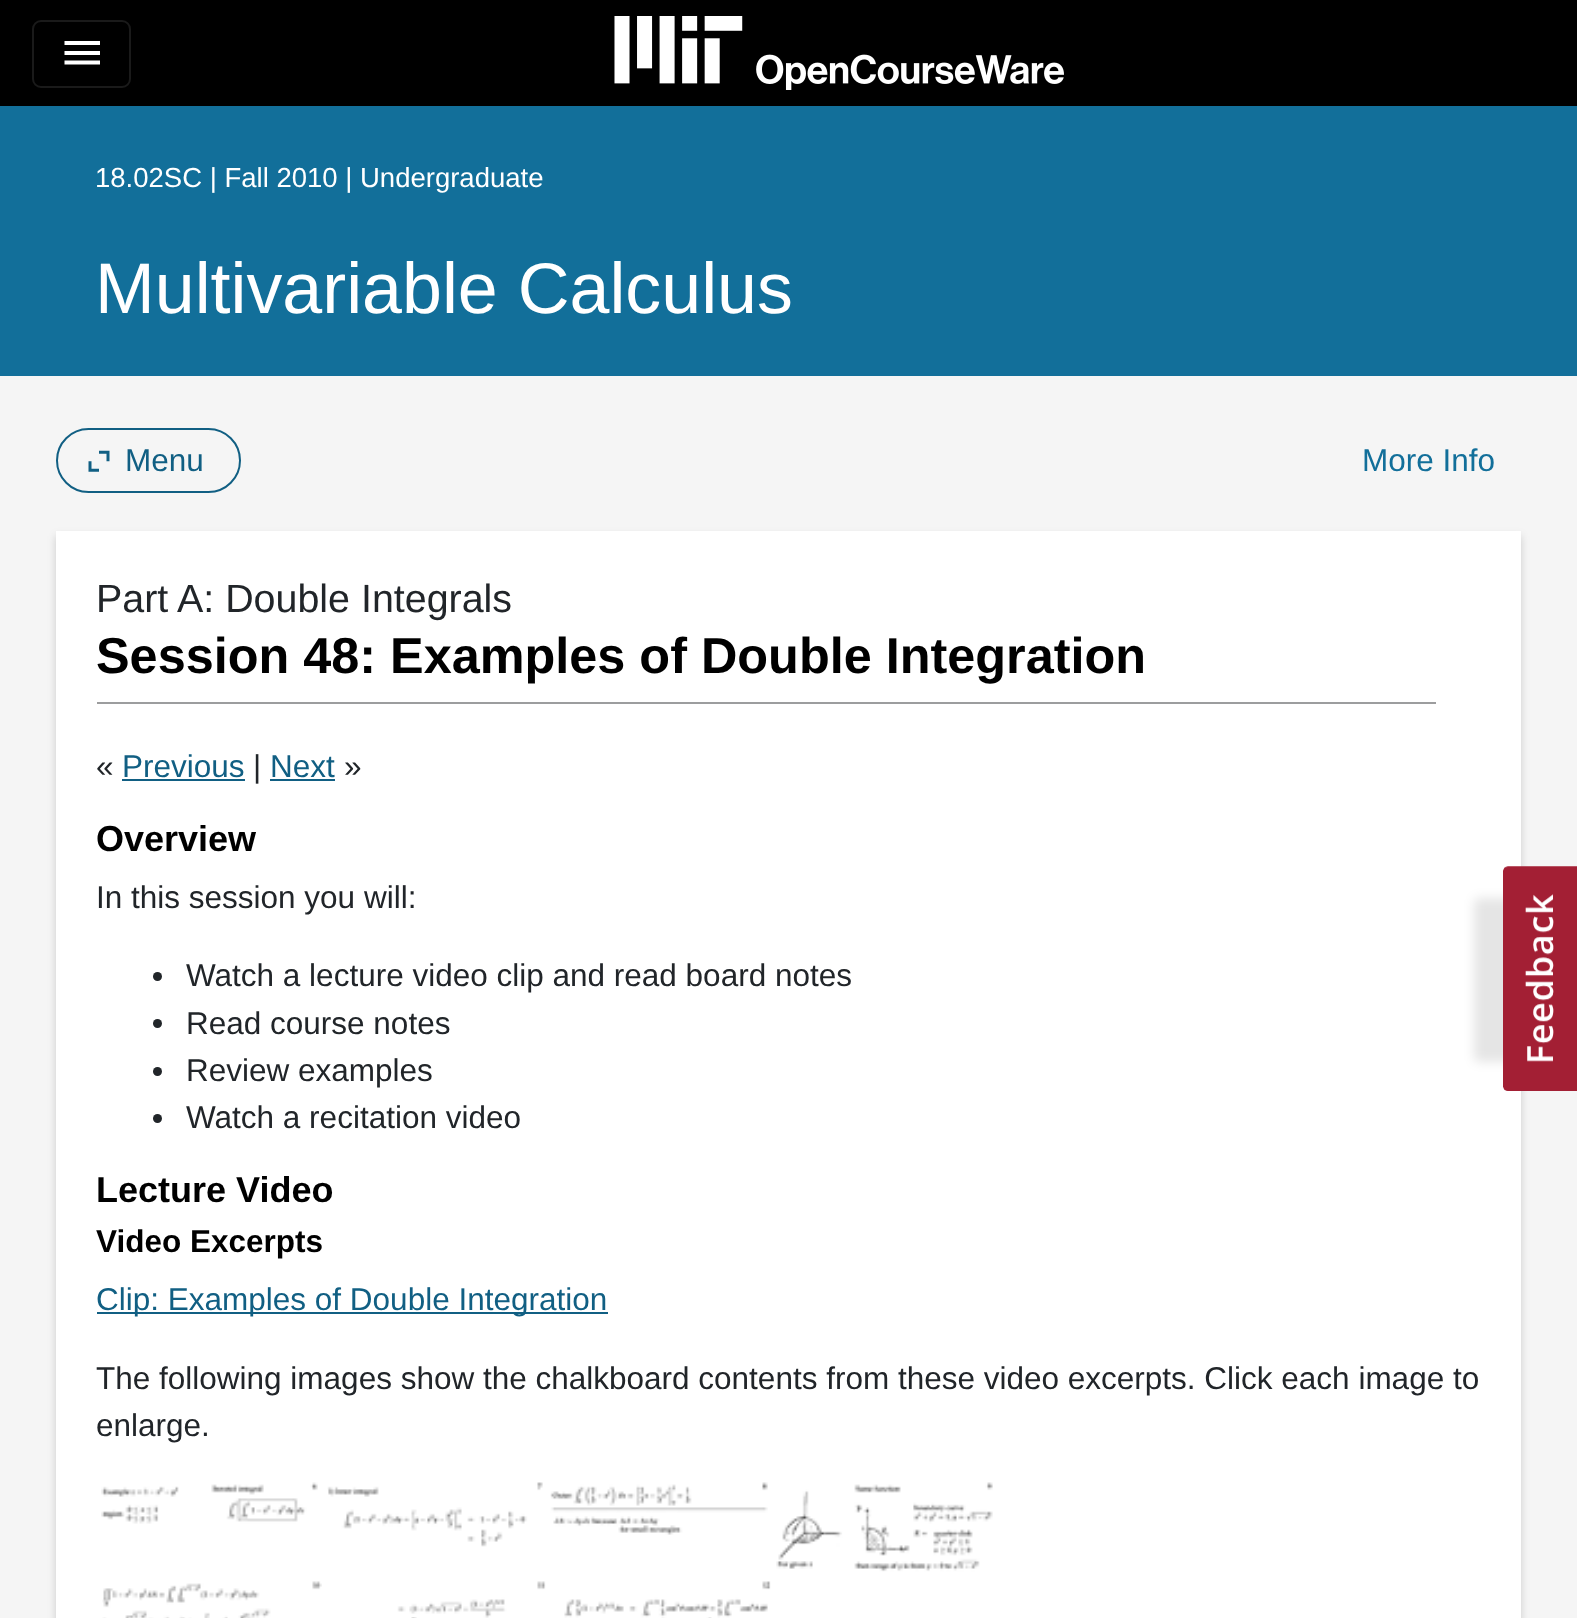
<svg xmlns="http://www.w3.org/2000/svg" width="1577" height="1618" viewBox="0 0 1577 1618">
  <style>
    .t1 { font: 27.5px Liberation Sans; fill: #fff; }
    .t2 { font: 71.75px Liberation Sans; fill: #fff; }
    .t3 { font: 31.5px Liberation Sans; fill: #115f83; }
    .t4 { font: 31.5px Liberation Sans; fill: #126f9a; }
    .t5 { font: 39.4px Liberation Sans; fill: #212529; }
    .t6 { font: bold 50.4px Liberation Sans; fill: #000; }
    .t7 { font: 31.5px Liberation Sans; fill: #212529; }
    .t8 { font: bold 36px Liberation Sans; fill: #000; }
    .t9 { font: bold 31.5px Liberation Sans; fill: #000; }
  </style>
  <rect width="100%" height="100%" fill="#f5f5f5"/>
  <rect x="0" y="0" width="1577" height="106" fill="#000"/>
  <rect x="33" y="21" width="97" height="66" rx="8" fill="none" stroke="#1a1a1a" stroke-width="2"/>
  <path d="M64.5 41H100V45H64.5ZM64.5 55V51H100V55ZM64.5 64.5V60.5H100V64.5Z" fill="#fff"/>
  <image x="614" y="16" width="450" height="74" href="images/1.png"/>
  <rect x="0" y="106" width="1577" height="270" fill="#126f9a"/>
  <text x="95" y="187" class="t1">18.02SC | Fall 2010 | Undergraduate</text>
  <text x="95" y="313" class="t2">Multivariable Calculus</text>
  <rect x="57" y="429" width="183" height="63" rx="31.5" fill="none" stroke="#115f83" stroke-width="2"/>
  <image x="88" y="450" width="22" height="22" href="images/2.png"/>
  <text x="125" y="471" class="t3">Menu</text>
  <text x="1362" y="471" class="t4">More Info</text>
  <rect x="56" y="536" width="1465" height="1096" fill="#00000029" filter="blur(4.5px)"/>
  <rect x="56" y="531" width="1465" height="1087" fill="#fff"/>
  <rect x="97" y="702" width="1339" height="2" fill="#9c9d9e"/>
  <text x="96" y="612" class="t5">Part A: Double Integrals</text>
  <text x="96" y="673" class="t6">Session 48: Examples of Double Integration</text>
  <text x="96" y="777" class="t7">«</text>
  <text x="122" y="777" class="t3">Previous</text>
  <rect x="122" y="779" width="123" height="2" fill="#115f83"/>
  <text x="253" y="777" class="t7">|</text>
  <text x="270" y="777" class="t3">Next</text>
  <rect x="270" y="779" width="65" height="2" fill="#115f83"/>
  <text x="344" y="777" class="t7">»</text>
  <text x="96" y="851" class="t8">Overview</text>
  <text x="96" y="908" class="t7">In this session you will:</text>
  <circle cx="157.5" cy="976.5" r="4.5" fill="#212529"/>
  <text x="186" y="986" class="t7">Watch a lecture video clip and read board notes</text>
  <circle cx="157.5" cy="1023.5" r="4.5" fill="#212529"/>
  <text x="186" y="1034" class="t7">Read course notes</text>
  <circle cx="157.5" cy="1071.5" r="4.5" fill="#212529"/>
  <text x="186" y="1081" class="t7">Review examples</text>
  <circle cx="157.5" cy="1118.5" r="4.5" fill="#212529"/>
  <text x="186" y="1128" class="t7">Watch a recitation video</text>
  <text x="96" y="1202" class="t8">Lecture Video</text>
  <text x="96" y="1252" class="t9">Video Excerpts</text>
  <rect x="97" y="1312" width="511" height="2" fill="#115f83"/>
  <text x="96" y="1310" class="t3">Clip: Examples of Double Integration</text>
  <text x="96" y="1389" class="t7">The following images show the chalkboard contents from these video excerpts. Click each image to</text>
  <text x="96" y="1436" class="t7">enlarge.</text>
  <image x="101" y="1482" width="217" height="42" href="images/3.png"/>
  <image x="327" y="1482" width="216" height="65" href="images/4.png"/>
  <image x="550" y="1482" width="218" height="53" href="images/5.png"/>
  <image x="776" y="1482" width="217" height="90" href="images/6.png"/>
  <image x="102" y="1581" width="220" height="37" href="images/7.png"/>
  <image x="397" y="1581" width="149" height="37" href="images/8.png"/>
  <image x="564" y="1581" width="207" height="37" href="images/9.png"/>
  <rect x="1474" y="898" width="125" height="164" rx="5" fill="#0000001a" filter="blur(5.5px)"/>
  <image x="1503" y="866" width="74" height="225" href="images/10.png"/>
</svg>
